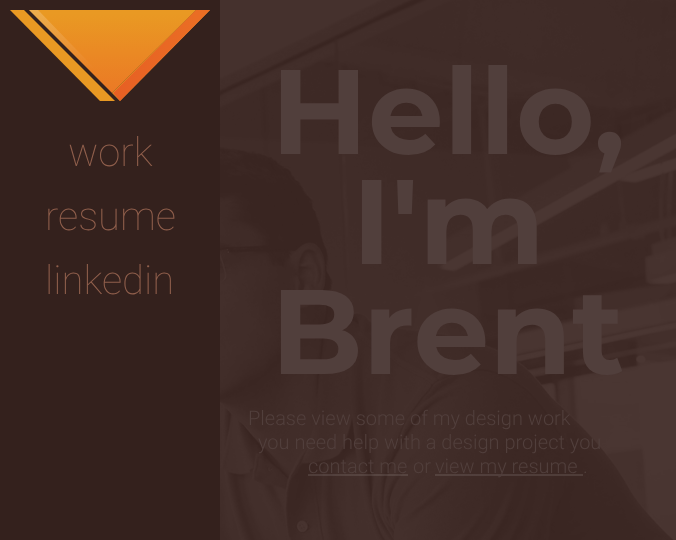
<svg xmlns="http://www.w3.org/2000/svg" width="676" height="540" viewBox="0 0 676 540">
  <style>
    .t1 { font: 100 40px Roboto; fill: #905f4c; }
    .t2 { font: 100 120px Montserrat; fill: #513f3c; }
    .t3 { font: 300 20px Roboto; fill: #513f3c; }
  </style>
  <defs>
    <linearGradient id="g1" gradientUnits="userSpaceOnUse" x1="113" y1="14" x2="113" y2="92"><stop offset="0" stop-color="#e99923"/><stop offset="1" stop-color="#eb7925"/></linearGradient>
    <linearGradient id="g2" gradientUnits="userSpaceOnUse" x1="66" y1="9" x2="66" y2="69"><stop offset="0" stop-color="#fff" stop-opacity="0.2"/><stop offset="1" stop-color="#fff" stop-opacity="0"/></linearGradient>
    <linearGradient id="g3" gradientUnits="userSpaceOnUse" x1="113" y1="55" x2="210" y2="55"><stop offset="0" stop-color="#e75f24"/><stop offset="0.86" stop-color="#ea6d24"/></linearGradient>
  </defs>
  <rect width="100%" height="100%" fill="#3e2723"/>
  <rect x="0" y="0" width="220" height="540" fill="#34211d"/>
  <path d="M151 10H29L112 93L196 10Z" fill="url(#g1)"/>
  <path d="M98 79L29 10H38L102 76Z" fill="url(#g2)"/>
  <path d="M210 10H196L112 93L120 101Z" fill="#e99923"/>
  <path d="M210 10H196L113 93L120 101Z" fill="url(#g3)"/>
  <path d="M115 101L24 10H10L100 101Z" fill="#e99923"/>
  <text x="68" y="166" class="t1">work</text>
  <text x="45" y="230" class="t1">resume</text>
  <text x="45" y="294" class="t1">linkedin</text>
  <image x="220" y="0" width="456" height="540" href="images/1.png"/>
  <text x="271" y="154" class="t2">Hello,</text>
  <text x="352" y="264" class="t2">I'm</text>
  <text x="271" y="374" class="t2">Brent</text>
  <text x="248" y="425" class="t3">Please view some of my design work</text>
  <text x="258" y="449" class="t3">you need help with a design project you</text>
  <text x="308" y="473" class="t3">contact me</text>
  <rect x="308" y="474" width="100" height="2" fill="#ffffff1a"/>
  <text x="413" y="473" class="t3">or</text>
  <rect x="435" y="474" width="148" height="2" fill="#ffffff1a"/>
  <text x="435" y="473" class="t3">view my resume</text>
  <text x="583" y="473" class="t3">.</text>
</svg>
